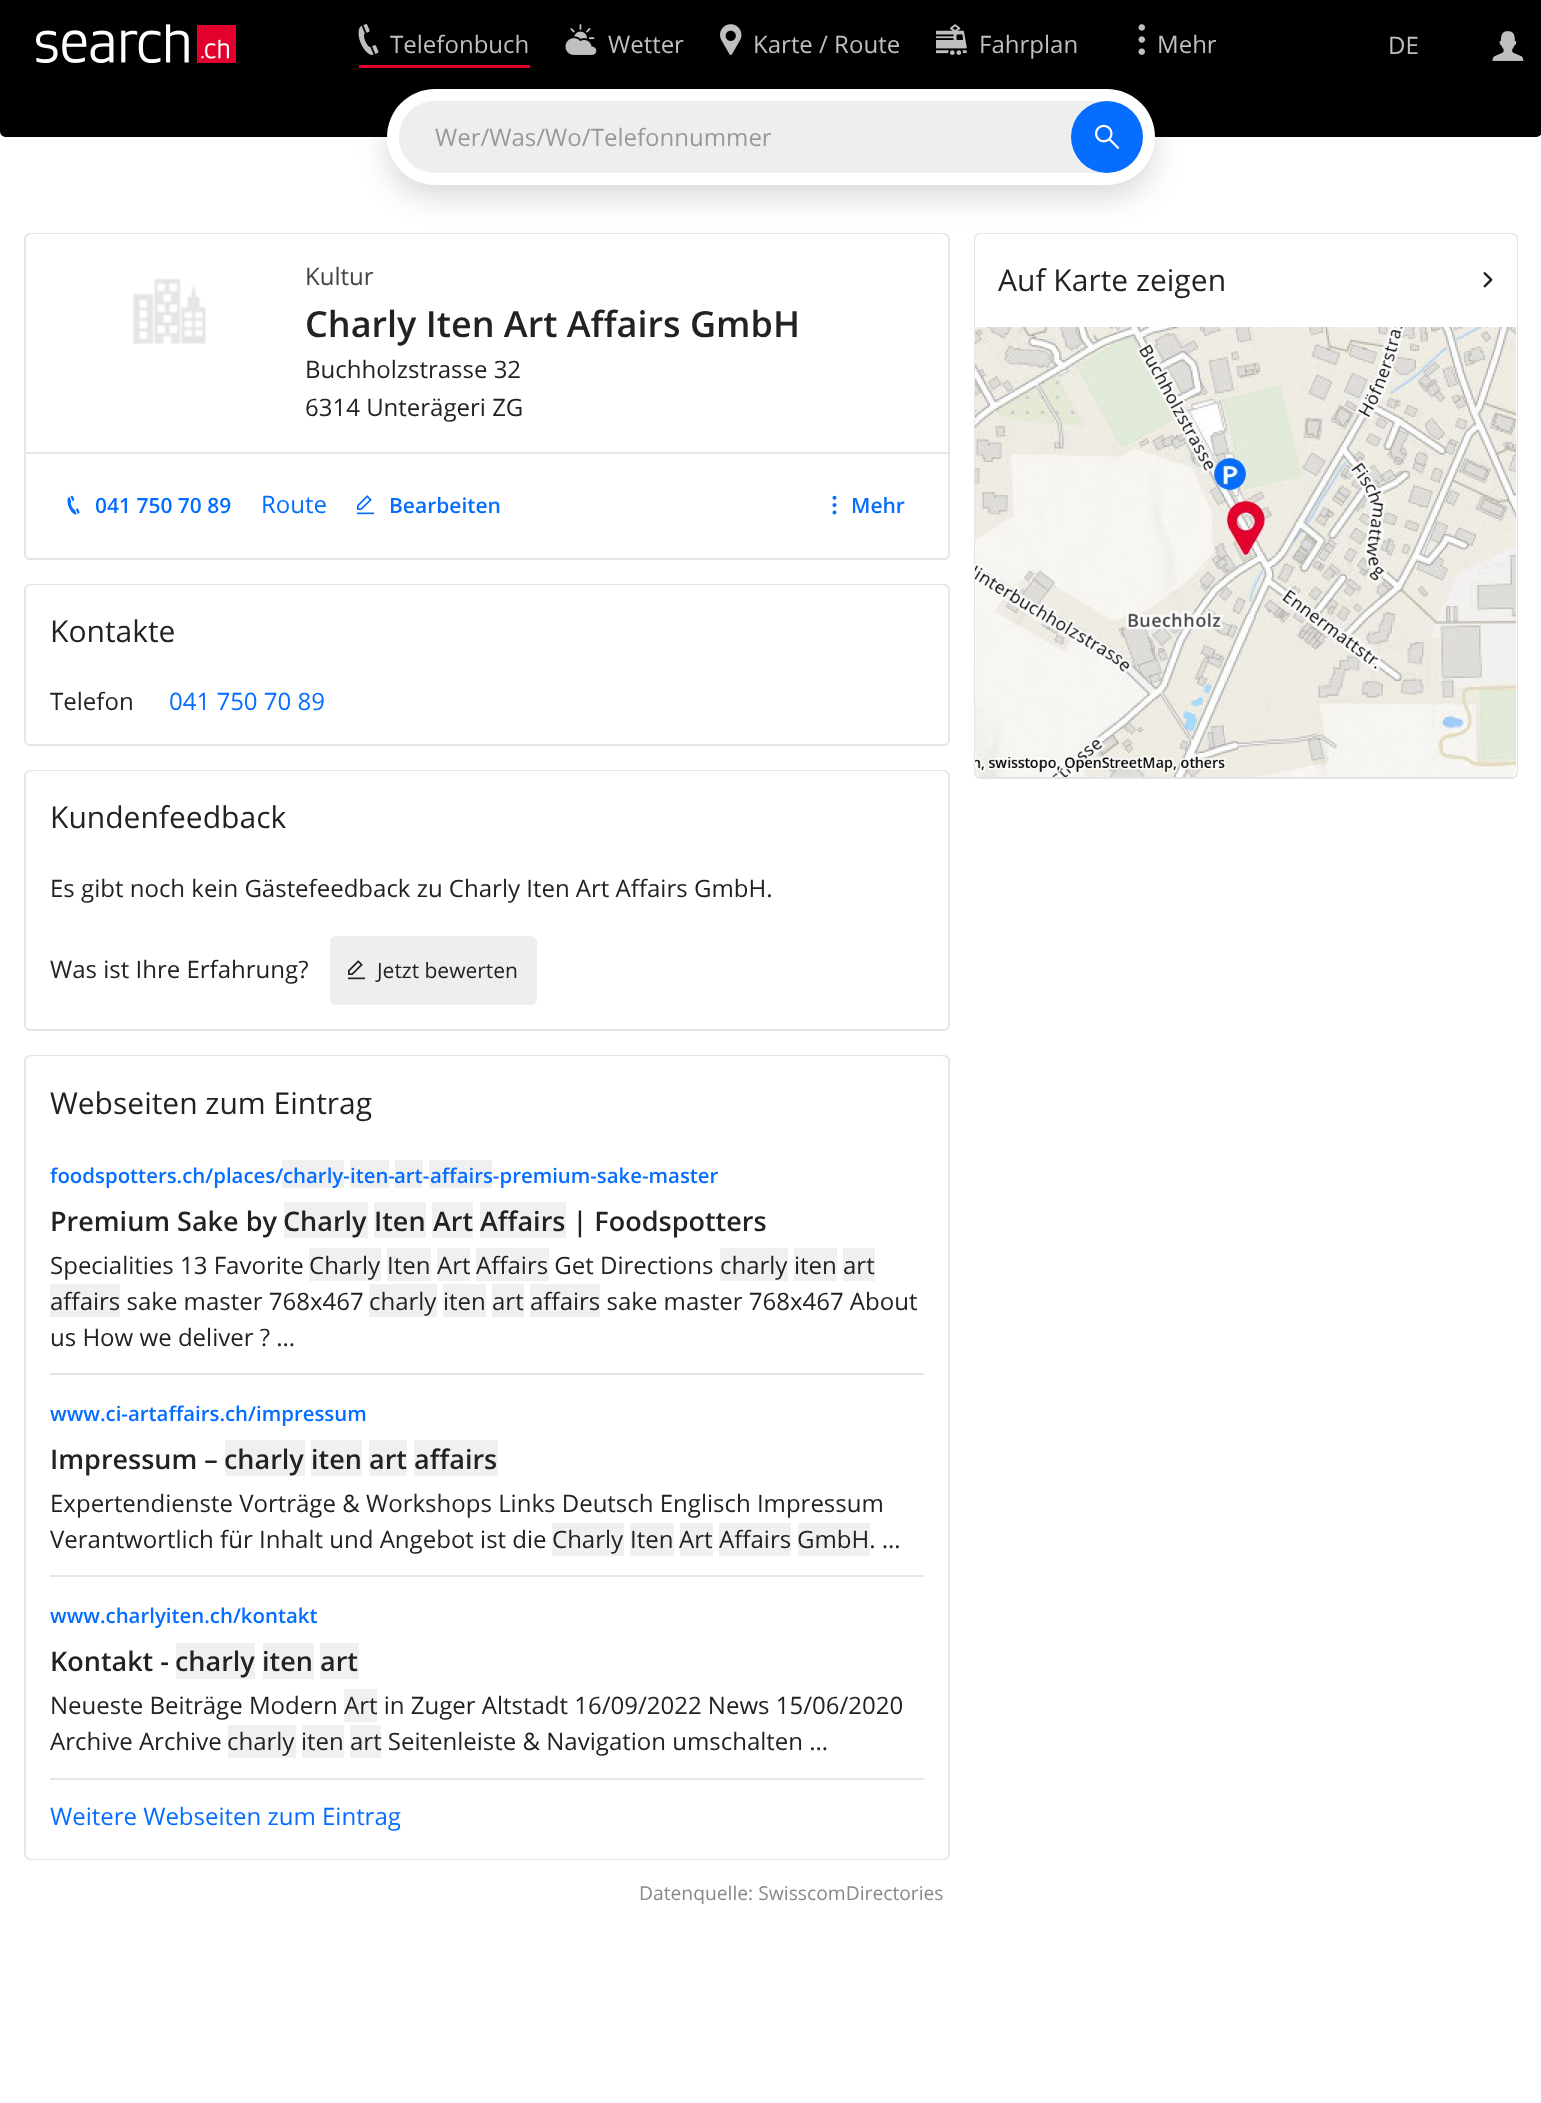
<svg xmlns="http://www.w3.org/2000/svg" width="1541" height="2103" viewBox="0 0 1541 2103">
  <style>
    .t1 { font: 24px Open Sans; fill: #bfbfbf; }
    .t2 { font: 24px Open Sans; fill: #999; }
    .t3 { font: 24px Open Sans; fill: #444; }
    .t4 { font: 600 36px Open Sans; fill: #222; }
    .t5 { font: 24px Open Sans; fill: #222; }
    .t6 { font: 600 21px Open Sans; fill: #056dff; }
    .t7 { font: 24px Open Sans; fill: #056dff; }
    .t8 { font: 30px Open Sans; fill: #222; }
    .t9 { font: 21px Open Sans; fill: #222; }
    .t10 { font: 600 20.4px Open Sans; fill: #056dff; }
    .t11 { font: 600 27px Open Sans; fill: #222; }
    .t12 { font: 19.25px Open Sans; fill: #888; }
  </style>
  <defs>
    <clipPath id="clip1"><rect x="26" y="234" width="922" height="324" rx="5"/></clipPath>
    <clipPath id="clip2"><rect x="975" y="234" width="542" height="543" rx="5"/></clipPath>
    <clipPath id="clip3"><rect x="26" y="585" width="922" height="159" rx="5"/></clipPath>
    <clipPath id="clip4"><rect x="26" y="771" width="922" height="258" rx="5"/></clipPath>
    <clipPath id="clip5"><rect x="26" y="1056" width="922" height="803" rx="5"/></clipPath>
    <clipPath id="clip6"><rect x="0" y="209" width="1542" height="1695"/></clipPath>
  </defs>
  <rect width="100%" height="100%" fill="#fff"/>
  <rect x="0" y="0" width="1541" height="89" fill="#000"/>
  <image x="36" y="24" width="200" height="39" href="images/1.png"/>
  <rect x="359" y="65" width="171" height="3" fill="#e4002c"/>
  <image x="358" y="24" width="21" height="31" href="images/2.png"/>
  <text x="390" y="53" class="t1">Telefonbuch</text>
  <image x="565" y="24" width="32" height="31" href="images/3.png"/>
  <text x="608" y="53" class="t1">Wetter</text>
  <image x="720" y="24" width="22" height="31" href="images/4.png"/>
  <text x="753" y="53" class="t1">Karte / Route</text>
  <image x="936" y="24" width="31" height="31" href="images/5.png"/>
  <text x="979" y="53" class="t1">Fahrplan</text>
  <image x="1138" y="24" width="7" height="31" href="images/6.png"/>
  <text x="1157" y="53" class="t1">Mehr</text>
  <text x="1388" y="54" class="t1">DE</text>
  <image x="1492" y="31" width="32" height="30" href="images/7.png"/>
  <path d="M0 89H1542V131C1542 134.5 1539.5 137 1536 137H6C2.5 137 0 134.5 0 131Z" fill="#000"/>
  <rect x="25" y="234" width="924" height="325" rx="5" fill="none" stroke="#e5e5e5" stroke-width="2"/>
  <g clip-path="url(#clip1)">
    <rect x="26" y="234" width="922" height="324" rx="6" fill="#fff"/>
  </g>
  <rect x="975" y="234" width="542" height="544" rx="5" fill="none" stroke="#e5e5e5" stroke-width="2"/>
  <g clip-path="url(#clip2)">
    <rect x="975" y="234" width="542" height="543" rx="6" fill="#fff"/>
  </g>
  <rect x="387" y="101" width="768" height="96" rx="48" fill="#00000026" filter="blur(15px)"/>
  <rect x="387" y="89" width="768" height="96" rx="48" fill="#fff"/>
  <rect x="399" y="101" width="744" height="72" rx="36" fill="#eee"/>
  <rect x="399" y="101" width="672" height="72" rx="36" fill="#eee"/>
  <text x="435" y="146" class="t2">Wer/Was/Wo/Telefonnummer</text>
  <circle cx="1107" cy="137" r="36" fill="#056dff"/>
  <image x="1095" y="124" width="25" height="25" href="images/8.png"/>
  <image x="133" y="278" width="73" height="66" href="images/9.png"/>
  <text x="305" y="285" class="t3">Kultur</text>
  <text x="305" y="337" class="t4">Charly Iten Art Affairs GmbH</text>
  <text x="305" y="378" class="t5">Buchholzstrasse 32</text>
  <text x="305" y="416" class="t5">6314 Unterägeri ZG</text>
  <rect x="26" y="452" width="922" height="2" fill="#e6e6e6"/>
  <image x="67" y="495" width="13" height="20" href="images/10.png"/>
  <text x="95" y="513" class="t6">041 750 70 89</text>
  <text x="261" y="513" class="t7">Route</text>
  <image x="357" y="495" width="18" height="20" href="images/11.png"/>
  <text x="389" y="513" class="t6">Bearbeiten</text>
  <image x="832" y="495" width="5" height="20" href="images/12.png"/>
  <text x="851" y="513" class="t6">Mehr</text>
  <rect x="25" y="585" width="924" height="160" rx="5" fill="none" stroke="#e5e5e5" stroke-width="2"/>
  <g clip-path="url(#clip3)">
    <rect x="26" y="585" width="922" height="159" rx="6" fill="#fff"/>
  </g>
  <text x="50" y="642" class="t8">Kontakte</text>
  <text x="50" y="710" class="t5">Telefon</text>
  <text x="169" y="710" class="t7">041 750 70 89</text>
  <rect x="25" y="771" width="924" height="259" rx="5" fill="none" stroke="#e5e5e5" stroke-width="2"/>
  <g clip-path="url(#clip4)">
    <rect x="26" y="771" width="922" height="258" rx="6" fill="#fff"/>
  </g>
  <text x="50" y="828" class="t8">Kundenfeedback</text>
  <text x="50" y="897" class="t5">Es gibt noch kein Gästefeedback zu Charly Iten Art Affairs GmbH.</text>
  <text x="50" y="978" class="t5">Was ist Ihre Erfahrung?</text>
  <rect x="330" y="936" width="207" height="69" rx="6" fill="#eee"/>
  <image x="348" y="960" width="18" height="20" href="images/13.png"/>
  <text x="377" y="978" class="t9">Jetzt bewerten</text>
  <rect x="25" y="1056" width="924" height="803" rx="5" fill="none" stroke="#e5e5e5" stroke-width="2"/>
  <g clip-path="url(#clip5)">
    <rect x="26" y="1056" width="922" height="803" rx="6" fill="#fff"/>
  </g>
  <text x="50" y="1114" class="t8">Webseiten zum Eintrag</text>
  <rect x="50" y="1373" width="874" height="2" fill="#e6e6e6"/>
  <text x="50" y="1183" class="t10">foodspotters.ch/places/</text>
  <rect x="282" y="1160" width="62" height="28" fill="#0000000f"/>
  <text x="283" y="1183" class="t10">charly-</text>
  <rect x="350" y="1160" width="39" height="28" fill="#f0f0f0"/>
  <text x="350" y="1183" class="t10">iten-</text>
  <rect x="395" y="1160" width="28" height="28" fill="#f0f0f0"/>
  <text x="394" y="1183" class="t10">art-</text>
  <rect x="429" y="1160" width="63" height="28" fill="#f0f0f0"/>
  <text x="430" y="1183" class="t10">affairs-premium-sake-master</text>
  <text x="50" y="1231" class="t11">Premium Sake by</text>
  <rect x="284" y="1202" width="84" height="36" fill="#f0f0f0"/>
  <text x="283" y="1231" class="t11">Charly</text>
  <rect x="374" y="1202" width="52" height="36" fill="#f0f0f0"/>
  <text x="374" y="1231" class="t11">Iten</text>
  <rect x="432" y="1202" width="41" height="36" fill="#f0f0f0"/>
  <text x="433" y="1231" class="t11">Art</text>
  <rect x="480" y="1202" width="86" height="36" fill="#f0f0f0"/>
  <text x="480" y="1231" class="t11">Affairs | Foodspotters</text>
  <text x="50" y="1274" class="t5">Specialities 13 Favorite</text>
  <rect x="309" y="1248" width="72" height="33" fill="#f0f0f0"/>
  <text x="309" y="1274" class="t5">Charly</text>
  <rect x="387" y="1248" width="44" height="33" fill="#f0f0f0"/>
  <text x="387" y="1274" class="t5">Iten</text>
  <rect x="437" y="1248" width="33" height="33" fill="#f0f0f0"/>
  <text x="437" y="1274" class="t5">Art</text>
  <rect x="476" y="1248" width="73" height="33" fill="#f0f0f0"/>
  <text x="476" y="1274" class="t5">Affairs Get Directions</text>
  <rect x="720" y="1248" width="68" height="33" fill="#f0f0f0"/>
  <text x="720" y="1274" class="t5">charly</text>
  <rect x="794" y="1248" width="43" height="33" fill="#f0f0f0"/>
  <text x="794" y="1274" class="t5">iten</text>
  <rect x="843" y="1248" width="32" height="33" fill="#f0f0f0"/>
  <text x="843" y="1274" class="t5">art</text>
  <rect x="50" y="1284" width="70" height="33" fill="#f0f0f0"/>
  <text x="50" y="1310" class="t5">affairs sake master 768x467</text>
  <rect x="369" y="1284" width="68" height="33" fill="#f0f0f0"/>
  <text x="369" y="1310" class="t5">charly</text>
  <rect x="443" y="1284" width="43" height="33" fill="#f0f0f0"/>
  <text x="443" y="1310" class="t5">iten</text>
  <rect x="492" y="1284" width="32" height="33" fill="#f0f0f0"/>
  <text x="492" y="1310" class="t5">art</text>
  <rect x="530" y="1284" width="70" height="33" fill="#f0f0f0"/>
  <text x="530" y="1310" class="t5">affairs sake master 768x467 About</text>
  <text x="50" y="1346" class="t5">us How we deliver ? …</text>
  <rect x="50" y="1575" width="874" height="2" fill="#e6e6e6"/>
  <text x="50" y="1421" class="t10">www.ci-artaffairs.ch/impressum</text>
  <text x="50" y="1469" class="t11">Impressum –</text>
  <rect x="225" y="1440" width="80" height="36" fill="#f0f0f0"/>
  <text x="224" y="1469" class="t11">charly</text>
  <rect x="311" y="1440" width="51" height="36" fill="#f0f0f0"/>
  <text x="311" y="1469" class="t11">iten</text>
  <rect x="369" y="1440" width="38" height="36" fill="#f0f0f0"/>
  <text x="369" y="1469" class="t11">art</text>
  <rect x="414" y="1440" width="84" height="36" fill="#f0f0f0"/>
  <text x="414" y="1469" class="t11">affairs</text>
  <text x="50" y="1512" class="t5">Expertendienste Vorträge &amp; Workshops Links Deutsch Englisch Impressum</text>
  <text x="50" y="1548" class="t5">Verantwortlich für Inhalt und Angebot ist die</text>
  <rect x="552" y="1523" width="72" height="33" fill="#f0f0f0"/>
  <text x="552" y="1548" class="t5">Charly</text>
  <rect x="630" y="1523" width="44" height="33" fill="#f0f0f0"/>
  <text x="630" y="1548" class="t5">Iten</text>
  <rect x="680" y="1523" width="33" height="33" fill="#f0f0f0"/>
  <text x="679" y="1548" class="t5">Art</text>
  <rect x="719" y="1523" width="72" height="33" fill="#f0f0f0"/>
  <text x="719" y="1548" class="t5">Affairs</text>
  <rect x="798" y="1523" width="72" height="33" fill="#f0f0f0"/>
  <text x="797" y="1548" class="t5">GmbH. …</text>
  <rect x="50" y="1778" width="874" height="2" fill="#e6e6e6"/>
  <text x="50" y="1623" class="t10">www.charlyiten.ch/kontakt</text>
  <text x="50" y="1671" class="t11">Kontakt -</text>
  <rect x="176" y="1643" width="79" height="36" fill="#f0f0f0"/>
  <text x="175" y="1671" class="t11">charly</text>
  <rect x="263" y="1643" width="51" height="36" fill="#f0f0f0"/>
  <text x="262" y="1671" class="t11">iten</text>
  <rect x="320" y="1643" width="39" height="36" fill="#f0f0f0"/>
  <text x="320" y="1671" class="t11">art</text>
  <text x="50" y="1714" class="t5">Neueste Beiträge Modern</text>
  <rect x="344" y="1689" width="33" height="33" fill="#f0f0f0"/>
  <text x="344" y="1714" class="t5">Art in Zuger Altstadt 16/09/2022 News 15/06/2020</text>
  <text x="50" y="1750" class="t5">Archive Archive</text>
  <rect x="228" y="1725" width="68" height="33" fill="#f0f0f0"/>
  <text x="227" y="1750" class="t5">charly</text>
  <rect x="302" y="1725" width="42" height="33" fill="#f0f0f0"/>
  <text x="301" y="1750" class="t5">iten</text>
  <rect x="350" y="1725" width="31" height="33" fill="#f0f0f0"/>
  <text x="350" y="1750" class="t5">art Seitenleiste &amp; Navigation umschalten …</text>
  <text x="50" y="1825" class="t7">Weitere Webseiten zum Eintrag</text>
  <g clip-path="url(#clip6)">
    <text x="639" y="1900" class="t12">Datenquelle: SwisscomDirectories</text>
  </g>
  <text x="998" y="291" class="t8">Auf Karte zeigen</text>
  <image x="1483" y="272" width="10" height="16" href="images/14.png"/>
  <image x="975" y="327" width="542" height="450" href="images/15.png"/>
</svg>
